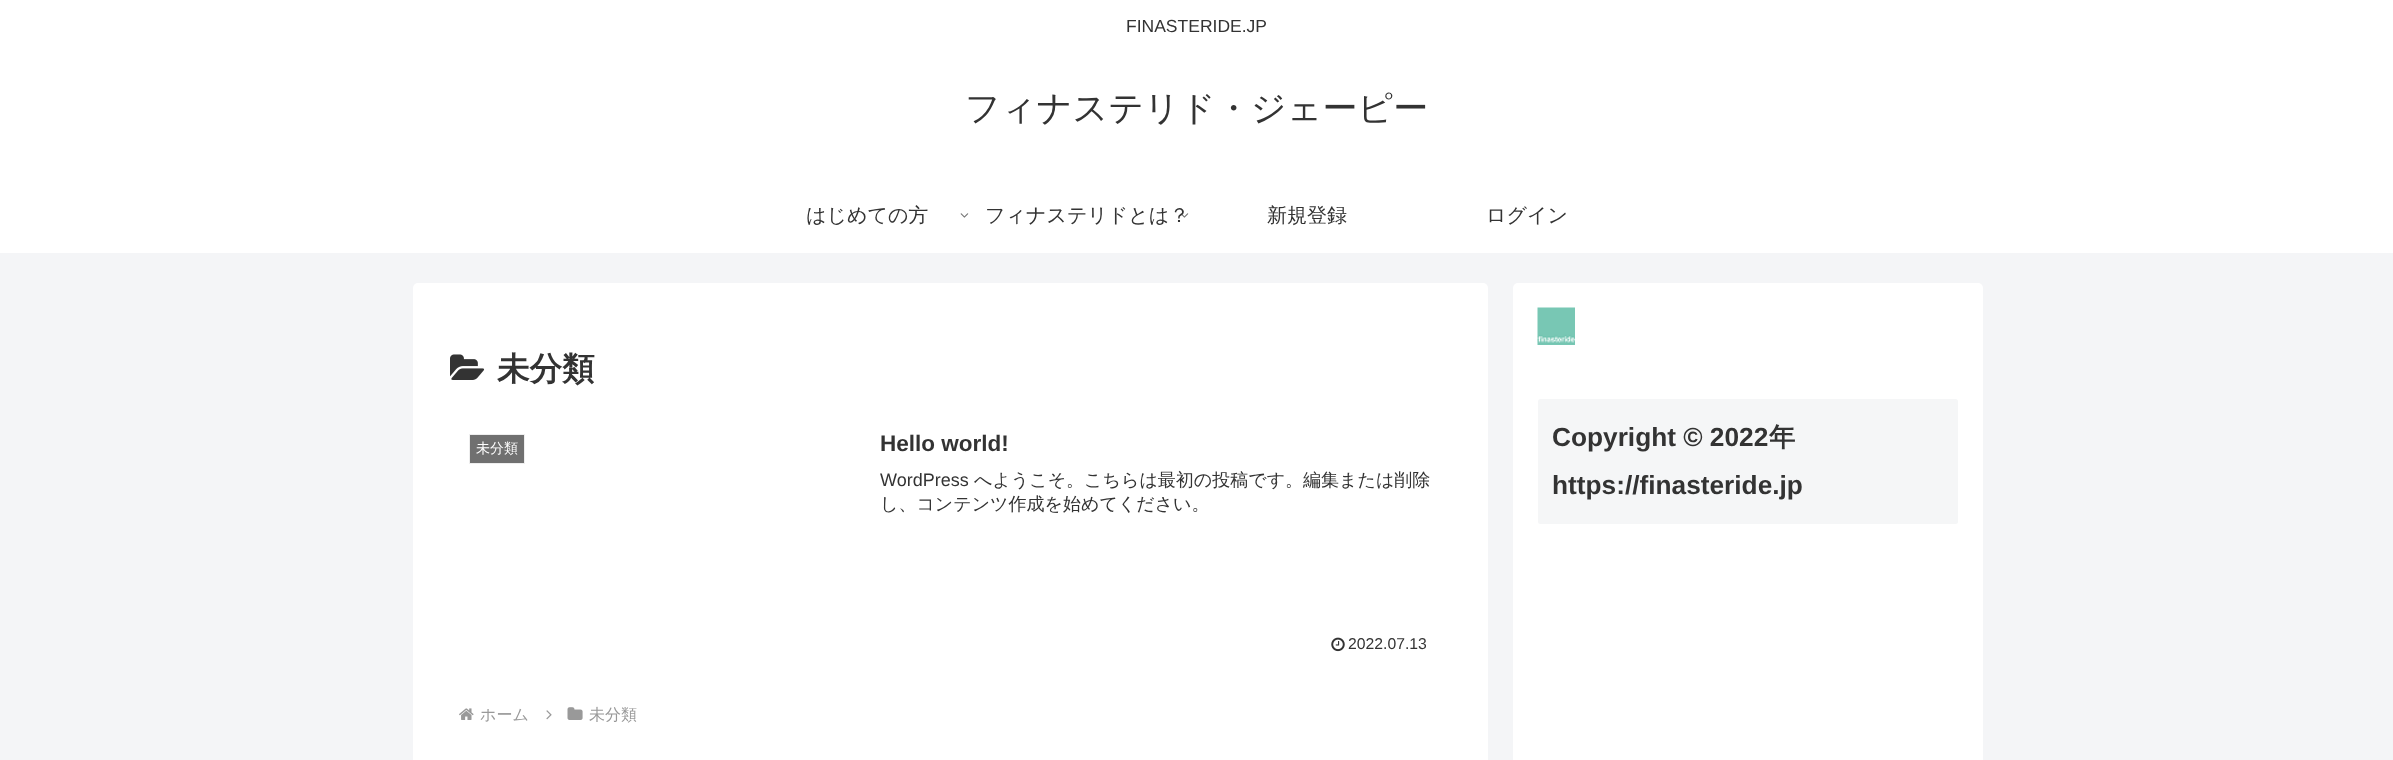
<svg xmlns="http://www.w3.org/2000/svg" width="2393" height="760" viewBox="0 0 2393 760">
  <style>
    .t1 { font: 17.5px Liberation Sans; fill: #333; }
    .t2 { font: 500 35px WenQuanYi Zen Hei; fill: #333; }
    .t3 { font: 500 20px WenQuanYi Zen Hei; fill: #333; }
    .t4 { font: bold 32.5px WenQuanYi Zen Hei; fill: #333; }
    .t5 { font: 500 14px WenQuanYi Zen Hei; fill: #fff; }
    .t6 { font: bold 22.5px Liberation Sans; fill: #333; }
    .t7 { font: 18px Liberation Sans; fill: #333; }
    .t8 { font: 500 18px WenQuanYi Zen Hei; fill: #333; }
    .t9 { font: 15.75px Liberation Sans; fill: #333; }
    .t10 { font: 500 16px WenQuanYi Zen Hei; fill: #999; }
    .t11 { font: bold 26.25px Liberation Sans; fill: #333; }
    .t12 { font: bold 26.25px WenQuanYi Zen Hei; fill: #333; }
  </style>
  <rect width="100%" height="100%" fill="#f4f5f7"/>
  <rect x="0" y="0" width="2393" height="253" fill="#fff"/>
  <text x="1126" y="32" class="t1">FINASTERIDE.JP</text>
  <text x="965" y="120" class="t2">フィナステリド・ジェーピー</text>
  <text x="806" y="222" class="t3">はじめての方</text>
  <image x="960" y="213" width="9" height="5" href="images/1.png"/>
  <text x="985" y="222" class="t3">フィナステリドとは？</text>
  <image x="1180" y="213" width="9" height="5" href="images/2.png"/>
  <text x="1267" y="222" class="t3">新規登録</text>
  <text x="1486" y="222" class="t3">ログイン</text>
  <rect x="413" y="283" width="1075" height="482" rx="5" fill="#fff"/>
  <image x="450" y="354" width="35" height="26" href="images/3.png"/>
  <text x="497" y="380" class="t4">未分類</text>
  <rect x="469.5" y="434.5" width="55" height="29" fill="#707070" stroke="#eee"/>
  <text x="476" y="453" class="t5">未分類</text>
  <text x="880" y="451" class="t6">Hello world!</text>
  <text x="880" y="486" class="t7">WordPress</text>
  <text x="974" y="486" class="t8">へようこそ。こちらは最初の投稿です。編集または削除</text>
  <text x="880" y="510" class="t8">し、コンテンツ作成を始めてください。</text>
  <image x="1331" y="637" width="14" height="15" href="images/4.png"/>
  <text x="1348" y="649" class="t9">2022.07.13</text>
  <image x="459" y="708" width="15" height="12" href="images/5.png"/>
  <text x="480" y="720" class="t10">ホーム</text>
  <image x="546" y="710" width="6" height="10" href="images/6.png"/>
  <image x="567" y="707" width="16" height="13" href="images/7.png"/>
  <text x="589" y="720" class="t10">未分類</text>
  <rect x="1513" y="283" width="470" height="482" rx="5" fill="#fff"/>
  <image x="1537" y="307" width="38" height="38" href="images/8.png"/>
  <rect x="1538" y="399" width="420" height="125" rx="2.5" fill="#f5f6f7"/>
  <text x="1552" y="446" class="t11">Copyright © 2022</text>
  <text x="1769" y="446" class="t12">年</text>
  <text x="1552" y="494" class="t11">https://finasteride.jp</text>
</svg>
